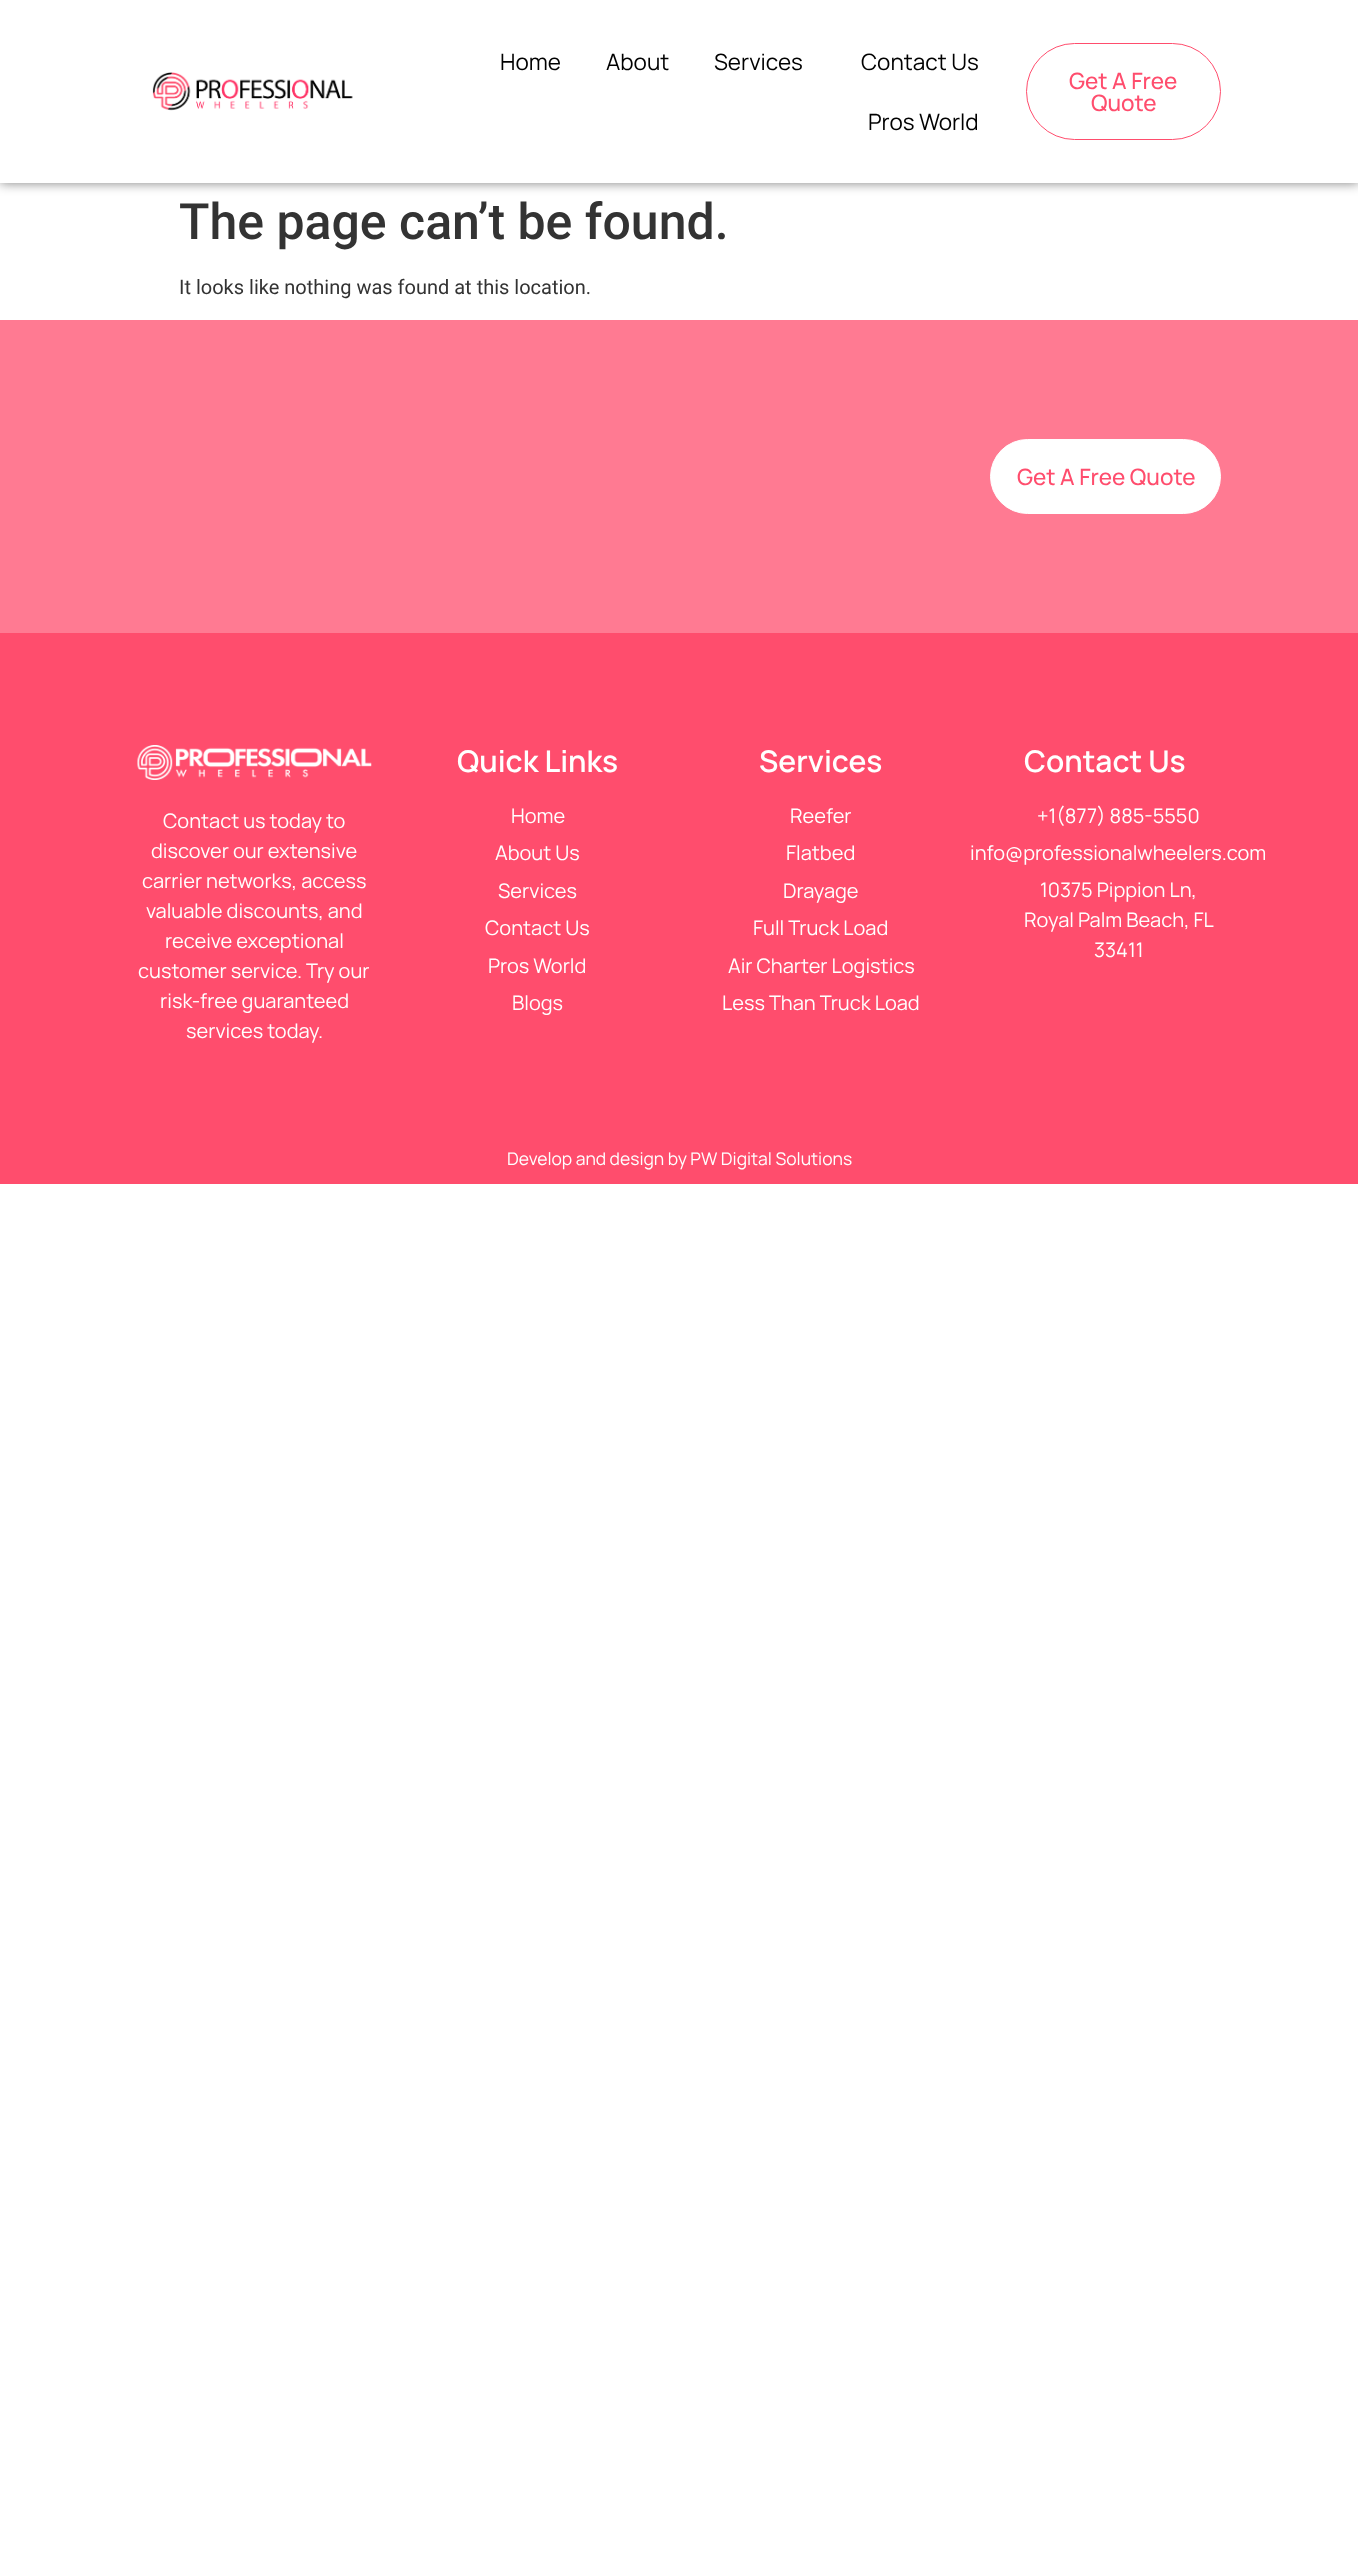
<svg xmlns="http://www.w3.org/2000/svg" width="1358" height="2573" viewBox="0 0 1358 2573">
  <style>
    .t1 { font: 22.5px Manrope; fill: #000; }
    .t2 { font: 500 22.5px Manrope; fill: #ff4d6d; }
    .t3 { font: 500 50px Roboto; fill: #333; }
    .t4 { font: 20px Roboto; fill: #333; }
    .t5 { font: 20px Manrope; fill: #fff; }
    .t6 { font: 600 30px Manrope; fill: #fff; }
    .t7 { font: 17.5px Manrope; fill: #fff; }
  </style>
  <rect width="100%" height="100%" fill="#fff"/>
  <rect x="0" y="0" width="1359" height="183" fill="#00000080" filter="blur(6px)"/>
  <rect x="0" y="0" width="1358" height="183" fill="#fff"/>
  <image x="152" y="72" width="201" height="39" href="images/1.png"/>
  <text x="500" y="70" class="t1">Home</text>
  <text x="606" y="70" class="t1">About</text>
  <text x="714" y="70" class="t1">Services</text>
  <text x="861" y="70" class="t1">Contact Us</text>
  <text x="868" y="130" class="t1">Pros World</text>
  <rect x="1026.5" y="43.5" width="194" height="96" rx="48" fill="none" stroke="#ff4d6d"/>
  <text x="1069" y="89" class="t2">Get A Free</text>
  <text x="1091" y="111" class="t2">Quote</text>
  <text x="179" y="239" class="t3">The page can’t be found.</text>
  <text x="179" y="294" class="t4">It looks like nothing was found at this location.</text>
  <rect x="0" y="320" width="1358" height="313" fill="#ff7a92"/>
  <rect x="990.5" y="439.5" width="230" height="74" rx="37" fill="#fff" stroke="#fff"/>
  <text x="1017" y="485" class="t2">Get A Free Quote</text>
  <rect x="0" y="633" width="1358" height="551" fill="#ff4d6d"/>
  <image x="137" y="745" width="235" height="35" href="images/2.png"/>
  <text x="163" y="828" class="t5">Contact us today to</text>
  <text x="151" y="858" class="t5">discover our extensive</text>
  <text x="142" y="888" class="t5">carrier networks, access</text>
  <text x="146" y="918" class="t5">valuable discounts, and</text>
  <text x="165" y="948" class="t5">receive exceptional</text>
  <text x="138" y="978" class="t5">customer service. Try our</text>
  <text x="160" y="1008" class="t5">risk-free guaranteed</text>
  <text x="186" y="1038" class="t5">services today.</text>
  <text x="457" y="772" class="t6">Quick Links</text>
  <text x="511" y="823" class="t5">Home</text>
  <text x="495" y="860" class="t5">About Us</text>
  <text x="498" y="898" class="t5">Services</text>
  <text x="485" y="935" class="t5">Contact Us</text>
  <text x="488" y="973" class="t5">Pros World</text>
  <text x="512" y="1010" class="t5">Blogs</text>
  <text x="759" y="772" class="t6">Services</text>
  <text x="790" y="823" class="t5">Reefer</text>
  <text x="786" y="860" class="t5">Flatbed</text>
  <text x="783" y="898" class="t5">Drayage</text>
  <text x="753" y="935" class="t5">Full Truck Load</text>
  <text x="728" y="973" class="t5">Air Charter Logistics</text>
  <text x="722" y="1010" class="t5">Less Than Truck Load</text>
  <text x="1024" y="772" class="t6">Contact Us</text>
  <text x="1037" y="823" class="t5">+1(877) 885-5550</text>
  <text x="970" y="860" class="t5">info@professionalwheelers.com</text>
  <text x="1040" y="897" class="t5">10375 Pippion Ln,</text>
  <text x="1024" y="927" class="t5">Royal Palm Beach, FL</text>
  <text x="1094" y="957" class="t5">33411</text>
  <text x="507" y="1165" class="t7">Develop and design by PW Digital Solutions</text>
</svg>
